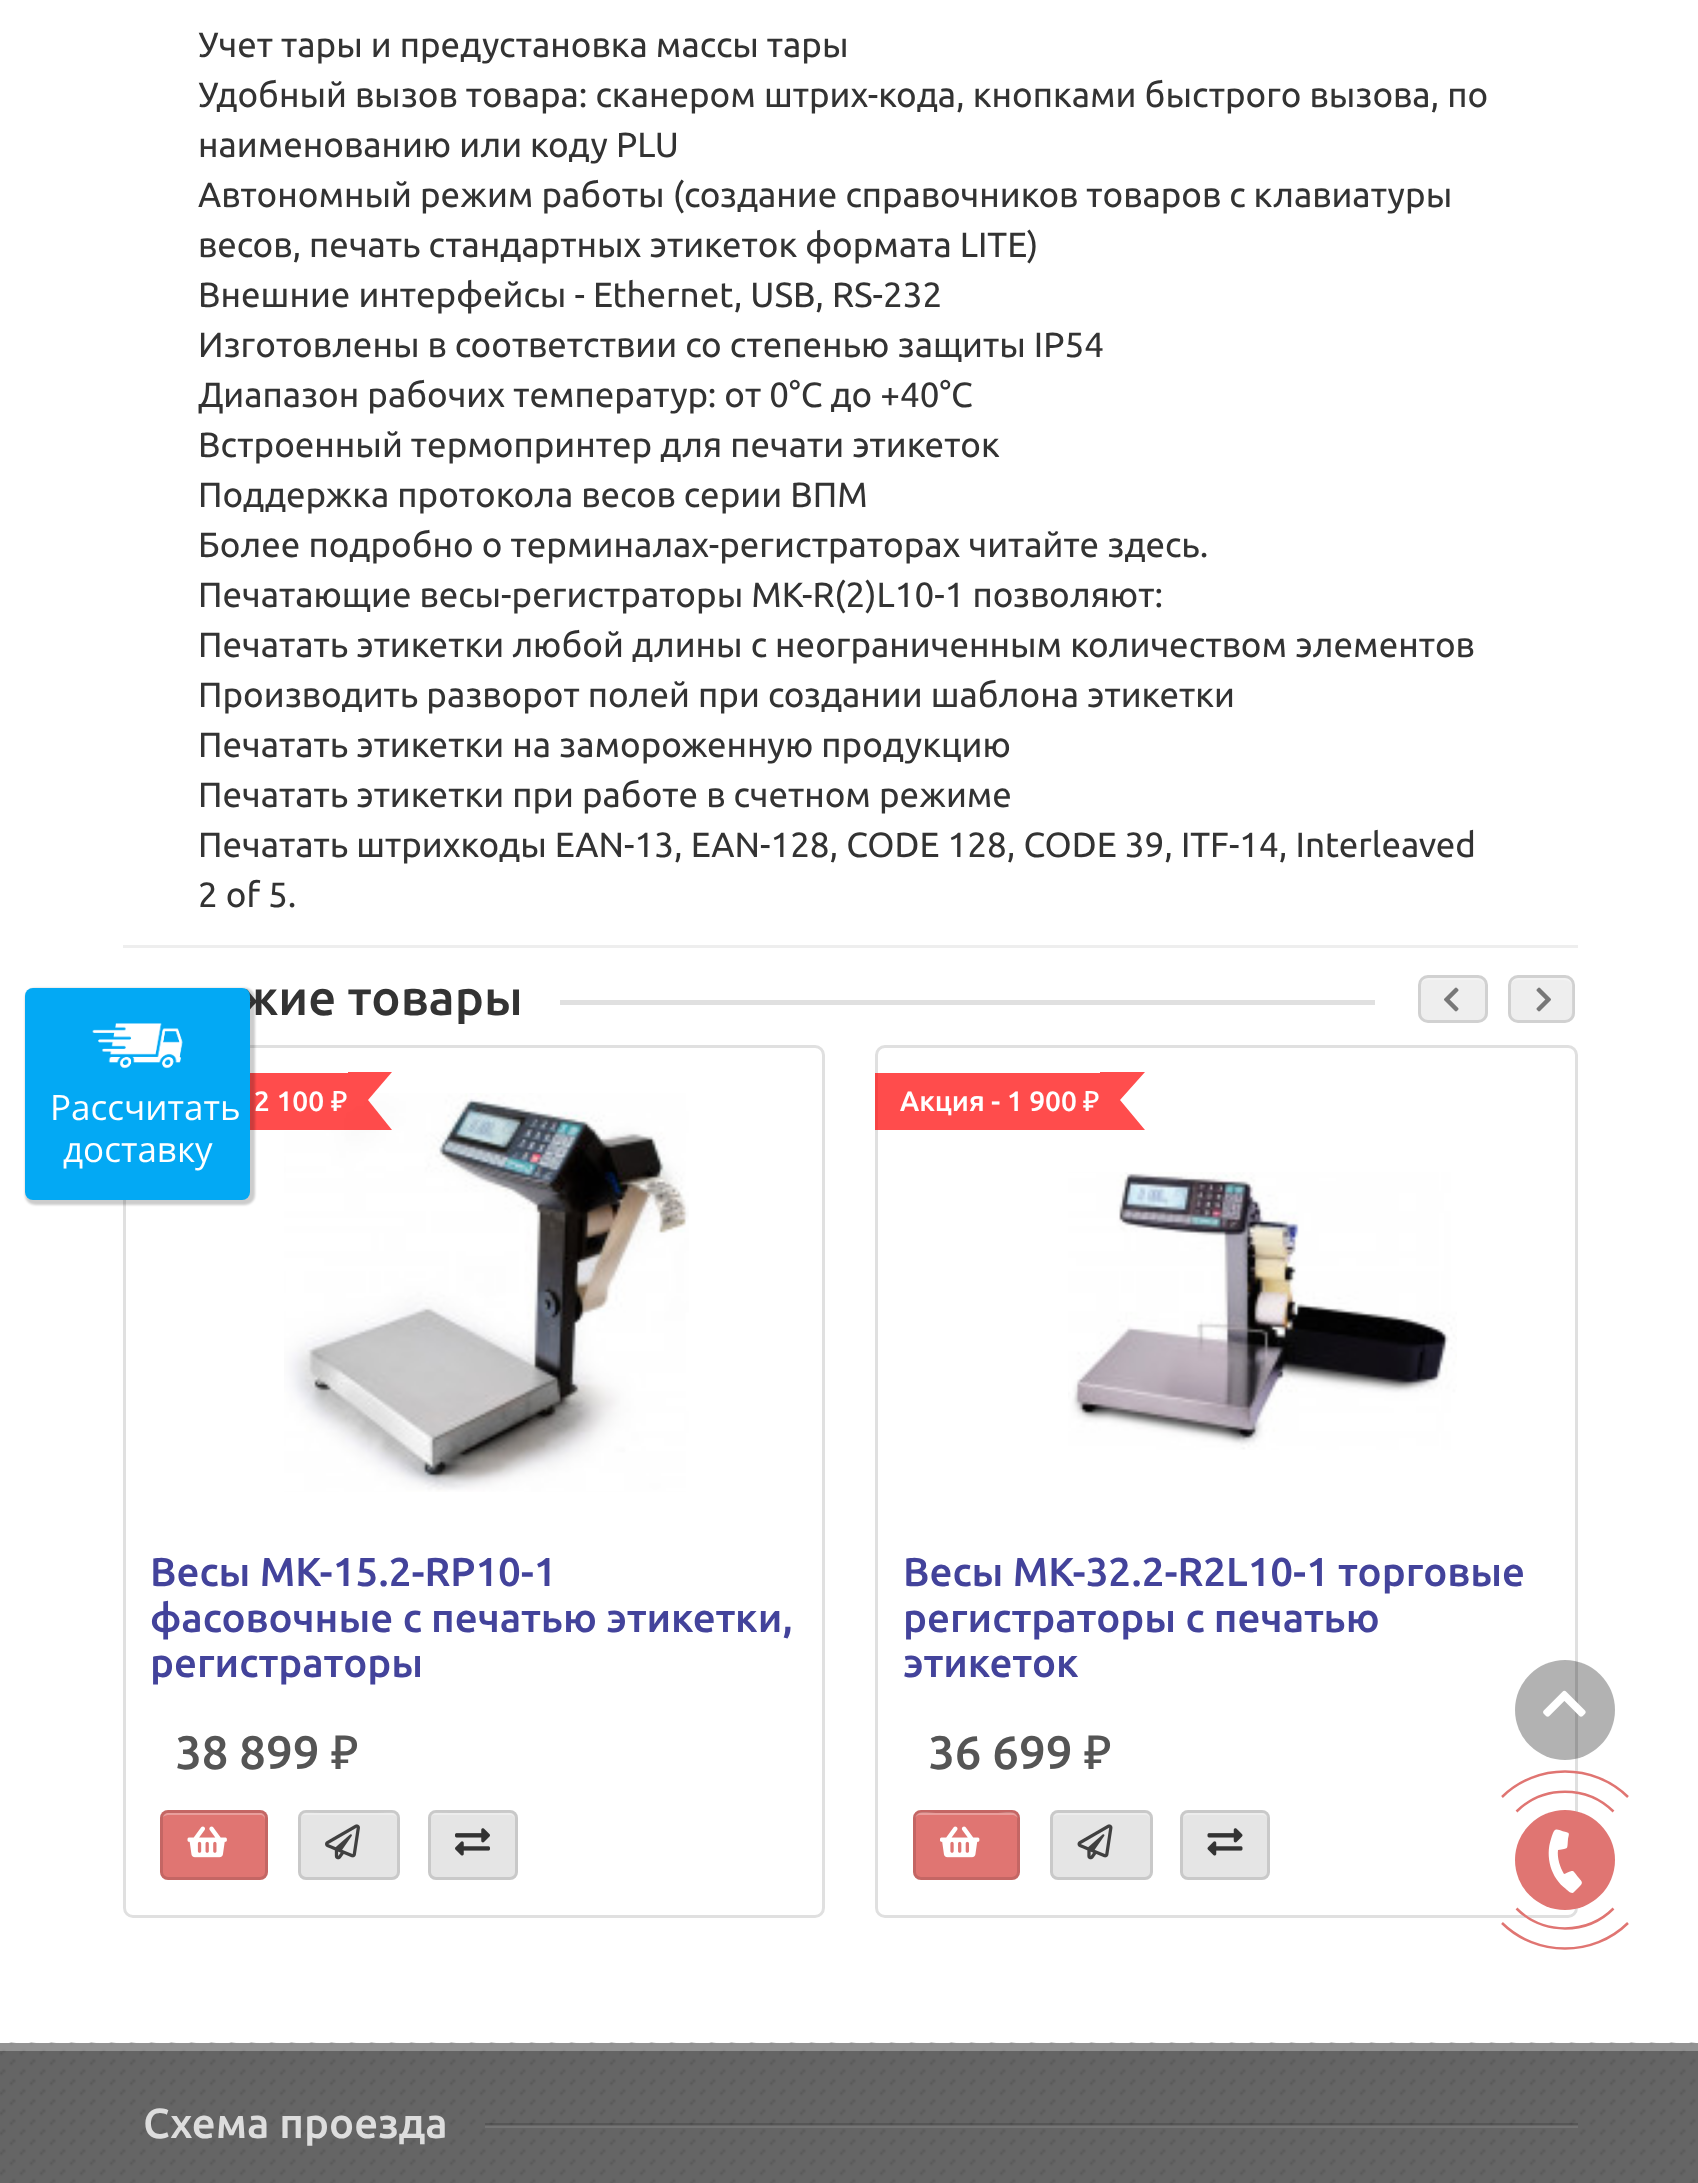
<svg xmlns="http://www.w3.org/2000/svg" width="1698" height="2183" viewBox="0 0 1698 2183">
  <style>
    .t1 { font: 500 49px Ubuntu; fill: #333; }
    .t2 { font: 35px Open Sans; fill: #fff; }
    .t3 { font: 35px Ubuntu; fill: #333; }
    .t4 { font: 500 28px Ubuntu; fill: #fff; }
    .t5 { font: 500 28px Noto Sans; fill: #fff; }
    .t6 { font: 500 40.25px Ubuntu; fill: #43439b; }
    .t7 { font: 500 47px Ubuntu; fill: #555; }
    .t8 { font: 500 47px Noto Sans; fill: #555; }
    .t9 { font: 500 42px Ubuntu; fill: #ddd; }
  </style>
  <rect width="100%" height="100%" fill="#fff"/>
  <rect x="124.5" y="1046.5" width="699" height="870" rx="8.5" fill="none" stroke="#e0e0e0" stroke-width="3"/>
  <image x="284" y="1093" width="405" height="399" href="images/4.png"/>
  <rect x="250" y="1073" width="98" height="57" fill="#ff0000b3"/>
  <rect x="25" y="988" width="230" height="217" rx="10" fill="#00000033" filter="blur(1px)"/>
  <text x="239" y="1015" class="t1">жие товары</text>
  <rect x="25" y="988" width="225" height="212" rx="8" fill="#03a9f4"/>
  <image x="92" y="1023" width="91" height="46" href="images/1.png"/>
  <text x="50" y="1120" class="t2">Рассчитать</text>
  <text x="63" y="1162" class="t2">доставку</text>
  <text x="198" y="57" class="t3">Учет тары и предустановка массы тары</text>
  <text x="198" y="107" class="t3">Удобный вызов товара: сканером штрих-кода, кнопками быстрого вызова, по</text>
  <text x="198" y="157" class="t3">наименованию или коду PLU</text>
  <text x="198" y="207" class="t3">Автономный режим работы (создание справочников товаров с клавиатуры</text>
  <text x="198" y="257" class="t3">весов, печать стандартных этикеток формата LITE)</text>
  <text x="198" y="307" class="t3">Внешние интерфейсы - Ethernet, USB, RS-232</text>
  <text x="198" y="357" class="t3">Изготовлены в соответствии со степенью защиты IP54</text>
  <text x="198" y="407" class="t3">Диапазон рабочих температур: от 0°C до +40°C</text>
  <text x="198" y="457" class="t3">Встроенный термопринтер для печати этикеток</text>
  <text x="198" y="507" class="t3">Поддержка протокола весов серии ВПМ</text>
  <text x="198" y="557" class="t3">Более подробно о терминалах-регистраторах читайте здесь.</text>
  <text x="198" y="607" class="t3">Печатающие весы-регистраторы МК-R(2)L10-1 позволяют:</text>
  <text x="198" y="657" class="t3">Печатать этикетки любой длины с неограниченным количеством элементов</text>
  <text x="198" y="707" class="t3">Производить разворот полей при создании шаблона этикетки</text>
  <text x="198" y="757" class="t3">Печатать этикетки на замороженную продукцию</text>
  <text x="198" y="807" class="t3">Печатать этикетки при работе в счетном режиме</text>
  <text x="198" y="857" class="t3">Печатать штрихкоды EAN-13, EAN-128, CODE 128, CODE 39, ITF-14, Interleaved</text>
  <text x="198" y="907" class="t3">2 of 5.</text>
  <rect x="123" y="945" width="1455" height="3" fill="#eee"/>
  <rect x="560" y="1000" width="815" height="5" fill="#e0e0e0"/>
  <rect x="1418" y="975" width="70" height="48" rx="10" fill="#eee"/>
  <path d="M1428 980H1478C1482 980 1485 983 1485 988C1485 977 1478 978 1469 978H1436C1427 978 1420 977 1420 988C1420 983 1423 980 1428 980Z" fill="#f3f3f3"/>
  <rect x="1419.5" y="976.5" width="67" height="45" rx="8.5" fill="none" stroke="#0000001f" stroke-width="3"/>
  <image x="1444" y="987" width="15" height="25" href="images/2.png"/>
  <rect x="1508" y="975" width="67" height="48" rx="10" fill="#eee"/>
  <path d="M1518 980H1557C1573 980 1572 981 1572 997V1016C1573 1015 1573 1013 1573 1012V986C1573 982 1569 978 1565 978H1518C1514 978 1510 982 1510 986V988C1510 983 1513 980 1518 980Z" fill="#f3f3f3"/>
  <rect x="1509.5" y="976.5" width="64" height="45" rx="8.5" fill="none" stroke="#0000001f" stroke-width="3"/>
  <image x="1536" y="987" width="15" height="25" href="images/3.png"/>
  <text x="254" y="1111" class="t4">2 100</text>
  <text x="331" y="1111" class="t5">₽</text>
  <path d="M348 1072H392L368 1100H348Z" fill="#ff4c4c"/>
  <path d="M392 1130H348V1100H368Z" fill="#ff0000b3"/>
  <text x="150" y="1586" class="t6">Весы МК-15.2-RP10-1</text>
  <text x="150" y="1632" class="t6">фасовочные с печатью этикетки,</text>
  <text x="150" y="1677" class="t6">регистраторы</text>
  <text x="175" y="1769" class="t7">38 899</text>
  <text x="331" y="1769" class="t8">₽</text>
  <rect x="160" y="1810" width="108" height="70" rx="8" fill="#e07572"/>
  <path d="M168 1815H260C263 1815 265 1817 265 1820V1818C265 1815 263 1813 260 1813H168C166 1813 163 1815 163 1817C164 1816 166 1815 168 1815Z" fill="#e99e9c"/>
  <rect x="161.5" y="1811.5" width="105" height="67" rx="6.5" fill="none" stroke="#0000001f" stroke-width="3"/>
  <image x="187" y="1826" width="40" height="32" href="images/5.png"/>
  <rect x="298" y="1810" width="102" height="70" rx="8" fill="#e5e5e5"/>
  <path d="M305 1815H392C395 1815 398 1817 398 1820C398 1809 387 1813 378 1813H320C311 1813 300 1809 300 1820C300 1817 302 1815 305 1815Z" fill="#ededed"/>
  <rect x="299.5" y="1811.5" width="99" height="67" rx="6.5" fill="none" stroke="#0000001f" stroke-width="3"/>
  <image x="325" y="1824" width="35" height="36" href="images/6.png"/>
  <rect x="428" y="1810" width="90" height="70" rx="8" fill="#e5e5e5"/>
  <path d="M435 1815H510C513 1815 515 1817 515 1820C515 1810 506 1813 498 1813H448C439 1813 430 1810 430 1820C430 1817 432 1815 435 1815Z" fill="#ededed"/>
  <rect x="429.5" y="1811.5" width="87" height="67" rx="6.5" fill="none" stroke="#0000001f" stroke-width="3"/>
  <image x="455" y="1828" width="35" height="28" href="images/7.png"/>
  <rect x="876.5" y="1046.5" width="700" height="870" rx="8.5" fill="none" stroke="#e0e0e0" stroke-width="3"/>
  <rect x="875" y="1073" width="225" height="57" fill="#ff0000b3"/>
  <text x="900" y="1111" class="t4">Акция - 1 900</text>
  <text x="1083" y="1111" class="t5">₽</text>
  <path d="M1100 1072H1145L1120 1100H1100ZM1145 1130H1100V1100H1120Z" fill="#ff4d4d"/>
  <image x="1068" y="1172" width="389" height="278" href="images/8.png"/>
  <text x="903" y="1586" class="t6">Весы МК-32.2-R2L10-1 торговые</text>
  <text x="903" y="1632" class="t6">регистраторы с печатью</text>
  <text x="903" y="1677" class="t6">этикеток</text>
  <text x="928" y="1769" class="t7">36 699</text>
  <text x="1084" y="1769" class="t8">₽</text>
  <rect x="913" y="1810" width="107" height="70" rx="8" fill="#e07572"/>
  <path d="M920 1815H1012C1015 1815 1018 1817 1018 1820C1018 1809 1006 1813 998 1813H936C927 1813 915 1809 915 1820C915 1817 917 1815 920 1815Z" fill="#e99e9c"/>
  <rect x="914.5" y="1811.5" width="104" height="67" rx="6.5" fill="none" stroke="#0000001f" stroke-width="3"/>
  <image x="940" y="1826" width="40" height="32" href="images/9.png"/>
  <rect x="1050" y="1810" width="103" height="70" rx="8" fill="#e5e5e5"/>
  <path d="M1058 1815H1145C1148 1815 1150 1817 1150 1820V1818C1150 1815 1148 1813 1145 1813H1058C1056 1813 1053 1815 1053 1817C1054 1816 1056 1815 1058 1815Z" fill="#ededed"/>
  <rect x="1051.5" y="1811.5" width="100" height="67" rx="6.5" fill="none" stroke="#0000001f" stroke-width="3"/>
  <image x="1077" y="1824" width="36" height="36" href="images/10.png"/>
  <rect x="1180" y="1810" width="90" height="70" rx="8" fill="#e5e5e5"/>
  <path d="M1188 1815H1262C1265 1815 1268 1817 1268 1820V1818C1268 1815 1266 1813 1263 1813H1188C1186 1813 1183 1815 1183 1817C1184 1816 1186 1815 1188 1815Z" fill="#ededed"/>
  <rect x="1181.5" y="1811.5" width="87" height="67" rx="6.5" fill="none" stroke="#0000001f" stroke-width="3"/>
  <image x="1207" y="1828" width="36" height="28" href="images/11.png"/>
  <circle cx="1565" cy="1710" r="50" fill="#0000004d"/>
  <image x="1543" y="1690" width="43" height="27" href="images/12.png"/>
  <circle cx="1565" cy="1860" r="50" fill="#e07572"/>
  <path d="M1516.5 1811.5C1543 1785 1587 1785 1613.5 1811.5" fill="none" stroke="#e07572" stroke-width="2.5"/>
  <path d="M1502 1797C1536.5 1763 1593.5 1763 1628 1797" fill="none" stroke="#e07572" stroke-width="2.5"/>
  <path d="M1613.5 1908.5C1587 1935 1543 1935 1516.5 1908.5" fill="none" stroke="#e07572" stroke-width="2.5"/>
  <path d="M1628 1923C1593.5 1957 1536.5 1957 1502 1923" fill="none" stroke="#e07572" stroke-width="2.5"/>
  <path d="M1574 1892L1580 1886C1584 1882 1581 1881 1578 1877C1572 1869 1574 1870 1564 1874C1560 1867 1557 1858 1558 1850C1569 1848 1567 1850 1568 1839C1569 1834 1570 1833 1566 1832C1555 1829 1555 1826 1551 1839C1545 1857 1551 1878 1566 1889C1567 1890 1572 1895 1574 1892Z" fill="#fff"/>
  <rect x="0" y="2043" width="1698" height="140" fill="#656565"/>
  <image x="0" y="2042" width="1696" height="141" href="images/13.png"/>
  <rect x="0" y="2043" width="1698" height="8" fill="#ffffff4d"/>
  <text x="143" y="2138" class="t9">Схема проезда</text>
  <rect x="485" y="2123" width="1093" height="3" fill="#00000026"/>
  <rect x="485" y="2125" width="1093" height="3" fill="#ffffff1a"/>
</svg>
